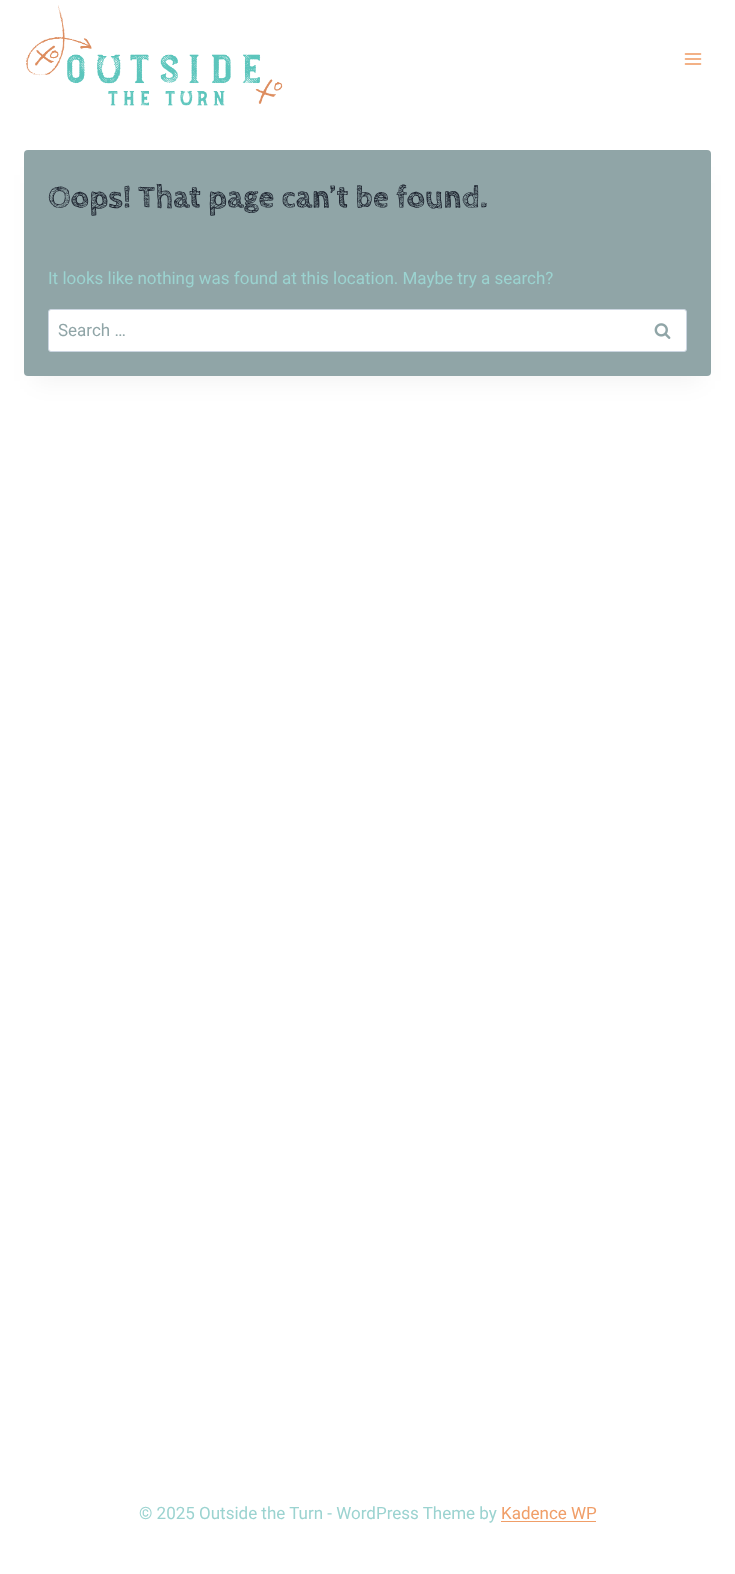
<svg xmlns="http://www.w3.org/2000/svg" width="735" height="1574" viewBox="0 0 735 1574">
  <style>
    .t1 { font: bold 32px Cabin Sketch; fill: #1a202c; }
    .t2 { font: 17px Roboto; fill: #9bd3d0; }
    .t3 { font: 17px Roboto; fill: #90a5a7; }
    .t4 { font: 17px Roboto; fill: #f09e68; }
  </style>
  <rect width="100%" height="100%" fill="#fff"/>
  <image x="26" y="5" width="257" height="101" href="images/1.png"/>
  <image x="684" y="53" width="18" height="12" href="images/2.png"/>
  <rect x="34" y="175" width="667" height="206" fill="#0000000d" filter="blur(12.5px)"/>
  <rect x="24" y="150" width="687" height="226" rx="4" fill="#90a5a7"/>
  <text x="48" y="207" class="t1">Oops! That page can’t be found.</text>
  <text x="48" y="284" class="t2">It looks like nothing was found at this location. Maybe try a search?</text>
  <rect x="48.5" y="309.5" width="638" height="42" rx="2.5" fill="#fff" stroke="#cbd5e0"/>
  <text x="58" y="336" class="t3">Search …</text>
  <image x="654" y="323" width="17" height="16" href="images/3.png"/>
  <text x="139" y="1519" class="t2">© 2025 Outside the Turn - WordPress Theme by</text>
  <text x="501" y="1519" class="t4">Kadence WP</text>
  <rect x="501" y="1521" width="95" height="1" fill="#f09e68"/>
</svg>
